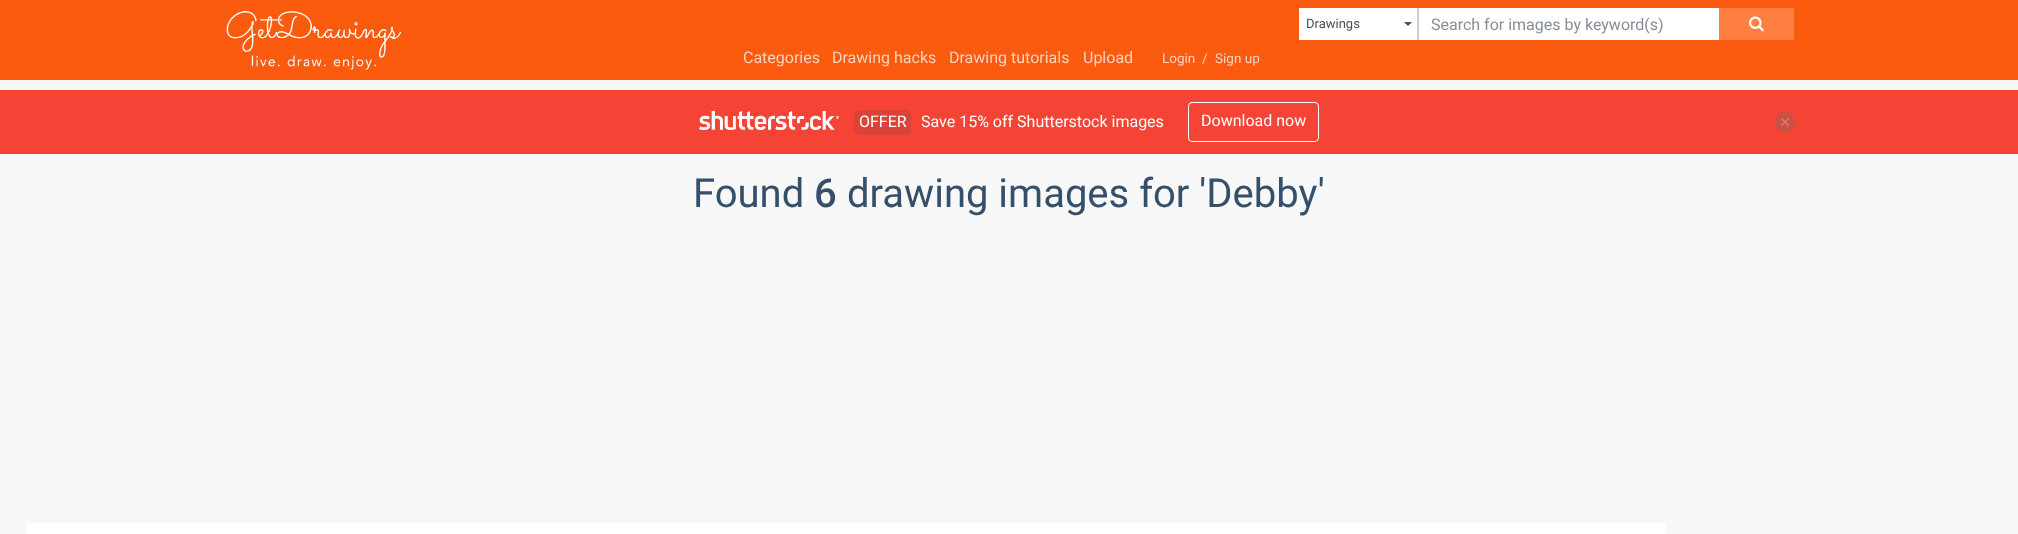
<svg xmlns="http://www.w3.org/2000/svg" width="2018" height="534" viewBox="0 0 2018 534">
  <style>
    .t1 { font: 13px Roboto; fill: #495057; }
    .t2 { font: 16px Roboto; fill: #868e96; }
    .t3 { font: 16px Roboto; fill: #ffd3be; }
    .t4 { font: 13.5px Roboto; fill: #ffd3be; }
    .t5 { font: 16px Roboto; fill: #fff; }
    .t6 { font: 40px Roboto; fill: #34506b; }
    .t7 { font: 500 40px Roboto; fill: #34506b; }
  </style>
  <rect width="100%" height="100%" fill="#f8f8f8"/>
  <rect x="0" y="0" width="2018" height="80" fill="#fa5b0f"/>
  <image x="226" y="10" width="176" height="60" href="images/1.png"/>
  <rect x="1299" y="8" width="118" height="32" fill="#fff"/>
  <rect x="1417" y="8" width="2" height="32" fill="#ccc"/>
  <text x="1306" y="28" class="t1">Drawings</text>
  <path d="M1404 22H1412L1408 26Z" fill="#495056"/>
  <rect x="1419" y="8" width="300" height="32" fill="#fff"/>
  <text x="1431" y="30" class="t2">Search for images by keyword(s)</text>
  <rect x="1719" y="8" width="75" height="32" fill="#ff7e41"/>
  <image x="1749" y="16" width="15" height="16" href="images/2.png"/>
  <text x="743" y="63" class="t3">Categories</text>
  <text x="832" y="63" class="t3">Drawing hacks</text>
  <text x="949" y="63" class="t3">Drawing tutorials</text>
  <text x="1083" y="63" class="t3">Upload</text>
  <text x="1162" y="63" class="t4">Login</text>
  <text x="1202" y="63" class="t4">/</text>
  <text x="1215" y="63" class="t4">Sign up</text>
  <rect x="0" y="90" width="2018" height="64" fill="#f54336"/>
  <image x="698" y="110" width="141" height="20" href="images/3.png"/>
  <rect x="854" y="110" width="57" height="25" rx="5" fill="#da4338"/>
  <text x="859" y="127" class="t5">OFFER</text>
  <text x="921" y="127" class="t5">Save 15% off Shutterstock images</text>
  <rect x="1188.5" y="102.5" width="130" height="39" rx="3.5" fill="none" stroke="#fff"/>
  <text x="1201" y="126" class="t5">Download now</text>
  <image x="1775" y="112" width="20" height="20" href="images/4.png"/>
  <text x="693" y="207" class="t6">Found</text>
  <text x="814" y="207" class="t7">6</text>
  <text x="847" y="207" class="t6">drawing images for 'Debby'</text>
  <rect x="26" y="523" width="1640" height="11" fill="#fff"/>
</svg>
